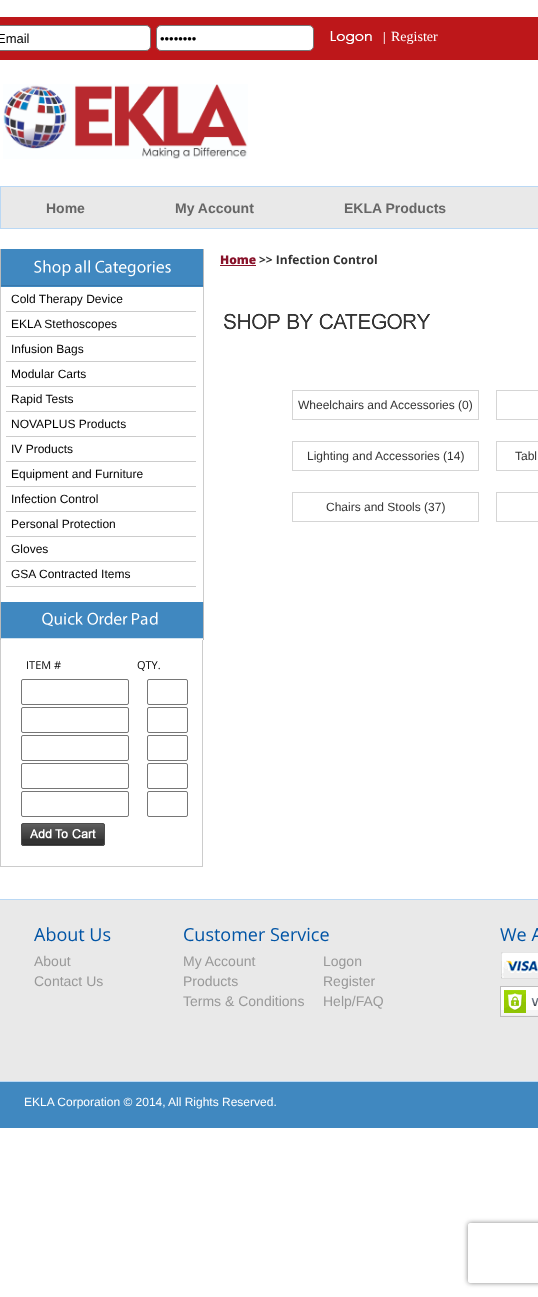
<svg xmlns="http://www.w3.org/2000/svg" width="538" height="1297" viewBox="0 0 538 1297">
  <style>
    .t1 { font: 13px Liberation Sans; fill: #000; }
    .t2 { font: 12px Open Sans; fill: #fff; }
    .t3 { font: 14px Liberation Serif; fill: #fff; }
    .t4 { font: bold 14px Liberation Sans; fill: #666; }
    .t5 { font: 12px Liberation Sans; fill: #000; }
    .t6 { font: 11px Open Sans; fill: #000; }
    .t7 { font: 800 12px Open Sans; fill: #88122a; }
    .t8 { font: bold 12px Open Sans; fill: #333; }
    .t9 { font: 12px Liberation Sans; fill: #333; }
    .t10 { font: 18px Open Sans; fill: #0054a5; }
    .t11 { font: 14px Liberation Sans; fill: #999; }
    .t12 { font: 12px Liberation Sans; fill: #fff; }
  </style>
  <defs>
    <clipPath id="clip1"><path d="M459 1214H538V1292H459ZM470 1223H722C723 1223 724 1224 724 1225V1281C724 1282 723 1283 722 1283H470C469 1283 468 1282 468 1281V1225C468 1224 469 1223 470 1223Z" clip-rule="evenodd"/></clipPath>
  </defs>
  <rect width="100%" height="100%" fill="#fff"/>
  <rect x="0" y="17" width="538" height="43" fill="#bd171a"/>
  <rect x="-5.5" y="25.5" width="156" height="25" rx="4.5" fill="#fff" stroke="#777"/>
  <text x="-3" y="43" class="t1">Email</text>
  <rect x="156.5" y="25.5" width="157" height="25" rx="4.5" fill="#fff" stroke="#777"/>
  <text x="160" y="43" class="t1">••••••••</text>
  <image x="330" y="31" width="42" height="13" href="images/1.png"/>
  <text x="381" y="41" class="t2">|</text>
  <text x="391" y="41" class="t3">Register</text>
  <image x="3" y="84" width="245" height="75" href="images/2.png"/>
  <rect x="0.5" y="186.5" width="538" height="42" fill="#e9e9e9" stroke="#bad8f4"/>
  <text x="46" y="213" class="t4">Home</text>
  <text x="175" y="213" class="t4">My Account</text>
  <text x="344" y="213" class="t4">EKLA Products</text>
  <image x="0" y="249" width="204" height="38" href="images/3.png"/>
  <rect x="203" y="287" width="1" height="315" fill="#ccc"/>
  <rect x="0" y="287" width="1" height="315" fill="#ccc"/>
  <rect x="6" y="311" width="190" height="1" fill="#ccc"/>
  <text x="11" y="303" class="t5">Cold Therapy Device</text>
  <rect x="6" y="336" width="190" height="1" fill="#ccc"/>
  <text x="11" y="328" class="t5">EKLA Stethoscopes</text>
  <rect x="6" y="361" width="190" height="1" fill="#ccc"/>
  <text x="11" y="353" class="t5">Infusion Bags</text>
  <rect x="6" y="386" width="190" height="1" fill="#ccc"/>
  <text x="11" y="378" class="t5">Modular Carts</text>
  <rect x="6" y="411" width="190" height="1" fill="#ccc"/>
  <text x="11" y="403" class="t5">Rapid Tests</text>
  <rect x="6" y="436" width="190" height="1" fill="#ccc"/>
  <text x="11" y="428" class="t5">NOVAPLUS Products</text>
  <rect x="6" y="461" width="190" height="1" fill="#ccc"/>
  <text x="11" y="453" class="t5">IV Products</text>
  <rect x="6" y="486" width="190" height="1" fill="#ccc"/>
  <text x="11" y="478" class="t5">Equipment and Furniture</text>
  <rect x="6" y="511" width="190" height="1" fill="#ccc"/>
  <text x="11" y="503" class="t5">Infection Control</text>
  <rect x="6" y="536" width="190" height="1" fill="#ccc"/>
  <text x="11" y="528" class="t5">Personal Protection</text>
  <rect x="6" y="561" width="190" height="1" fill="#ccc"/>
  <text x="11" y="553" class="t5">Gloves</text>
  <rect x="6" y="586" width="190" height="1" fill="#ccc"/>
  <text x="11" y="578" class="t5">GSA Contracted Items</text>
  <image x="0" y="602" width="204" height="38" href="images/4.png"/>
  <rect x="202" y="640" width="1" height="227" fill="#ccc"/>
  <rect x="0" y="866" width="203" height="1" fill="#ccc"/>
  <rect x="0" y="640" width="1" height="227" fill="#ccc"/>
  <text x="26" y="669" class="t6">ITEM #</text>
  <text x="137" y="669" class="t6">QTY.</text>
  <rect x="21.5" y="679.5" width="107" height="25" rx="1.5" fill="none" stroke="#767676"/>
  <rect x="147.5" y="679.5" width="40" height="25" rx="1.5" fill="none" stroke="#767676"/>
  <rect x="21.5" y="707.5" width="107" height="25" rx="1.5" fill="none" stroke="#767676"/>
  <rect x="147.5" y="707.5" width="40" height="25" rx="1.5" fill="none" stroke="#767676"/>
  <rect x="21.5" y="735.5" width="107" height="25" rx="1.5" fill="none" stroke="#767676"/>
  <rect x="147.5" y="735.5" width="40" height="25" rx="1.5" fill="none" stroke="#767676"/>
  <rect x="21.5" y="763.5" width="107" height="25" rx="1.5" fill="none" stroke="#767676"/>
  <rect x="147.5" y="763.5" width="40" height="25" rx="1.5" fill="none" stroke="#767676"/>
  <rect x="21.5" y="791.5" width="107" height="25" rx="1.5" fill="none" stroke="#767676"/>
  <rect x="147.5" y="791.5" width="40" height="25" rx="1.5" fill="none" stroke="#767676"/>
  <image x="21" y="823" width="84" height="23" href="images/5.png"/>
  <text x="220" y="264" class="t7">Home</text>
  <rect x="220" y="265" width="36" height="1" fill="#88122a"/>
  <text x="259" y="264" class="t8">&gt;&gt; Infection Control</text>
  <image x="224" y="313" width="206" height="17" href="images/6.png"/>
  <rect x="292.5" y="390.5" width="186" height="29" fill="none" stroke="#d5d5d5"/>
  <text x="298" y="409" class="t9">Wheelchairs and Accessories (0)</text>
  <rect x="496.5" y="390.5" width="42" height="29" fill="none" stroke="#d5d5d5"/>
  <rect x="292.5" y="441.5" width="186" height="29" fill="none" stroke="#d5d5d5"/>
  <text x="307" y="460" class="t9">Lighting and Accessories (14)</text>
  <rect x="496.5" y="441.5" width="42" height="29" fill="none" stroke="#d5d5d5"/>
  <text x="515" y="460" class="t9">Tabl</text>
  <rect x="292.5" y="492.5" width="186" height="29" fill="none" stroke="#d5d5d5"/>
  <text x="326" y="511" class="t9">Chairs and Stools (37)</text>
  <rect x="496.5" y="492.5" width="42" height="29" fill="none" stroke="#d5d5d5"/>
  <image x="0" y="899" width="538" height="229" href="images/7.png"/>
  <text x="34" y="941" class="t10">About Us</text>
  <text x="34" y="966" class="t11">About</text>
  <text x="34" y="986" class="t11">Contact Us</text>
  <text x="183" y="941" class="t10">Customer Service</text>
  <text x="183" y="966" class="t11">My Account</text>
  <text x="183" y="986" class="t11">Products</text>
  <text x="183" y="1006" class="t11">Terms &amp; Conditions</text>
  <text x="323" y="966" class="t11">Logon</text>
  <text x="323" y="986" class="t11">Register</text>
  <text x="323" y="1006" class="t11">Help/FAQ</text>
  <text x="500" y="941" class="t10">We A</text>
  <image x="501" y="952" width="37" height="27" href="images/8.png"/>
  <image x="500" y="986" width="38" height="31" href="images/9.png"/>
  <text x="24" y="1106" class="t12">EKLA Corporation © 2014,</text>
  <text x="168" y="1106" class="t12">All Rights Reserved.</text>
  <g clip-path="url(#clip1)">
    <rect x="468" y="1223" width="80" height="60" rx="2" fill="#808080" filter="blur(2.5px)"/>
  </g>
</svg>
